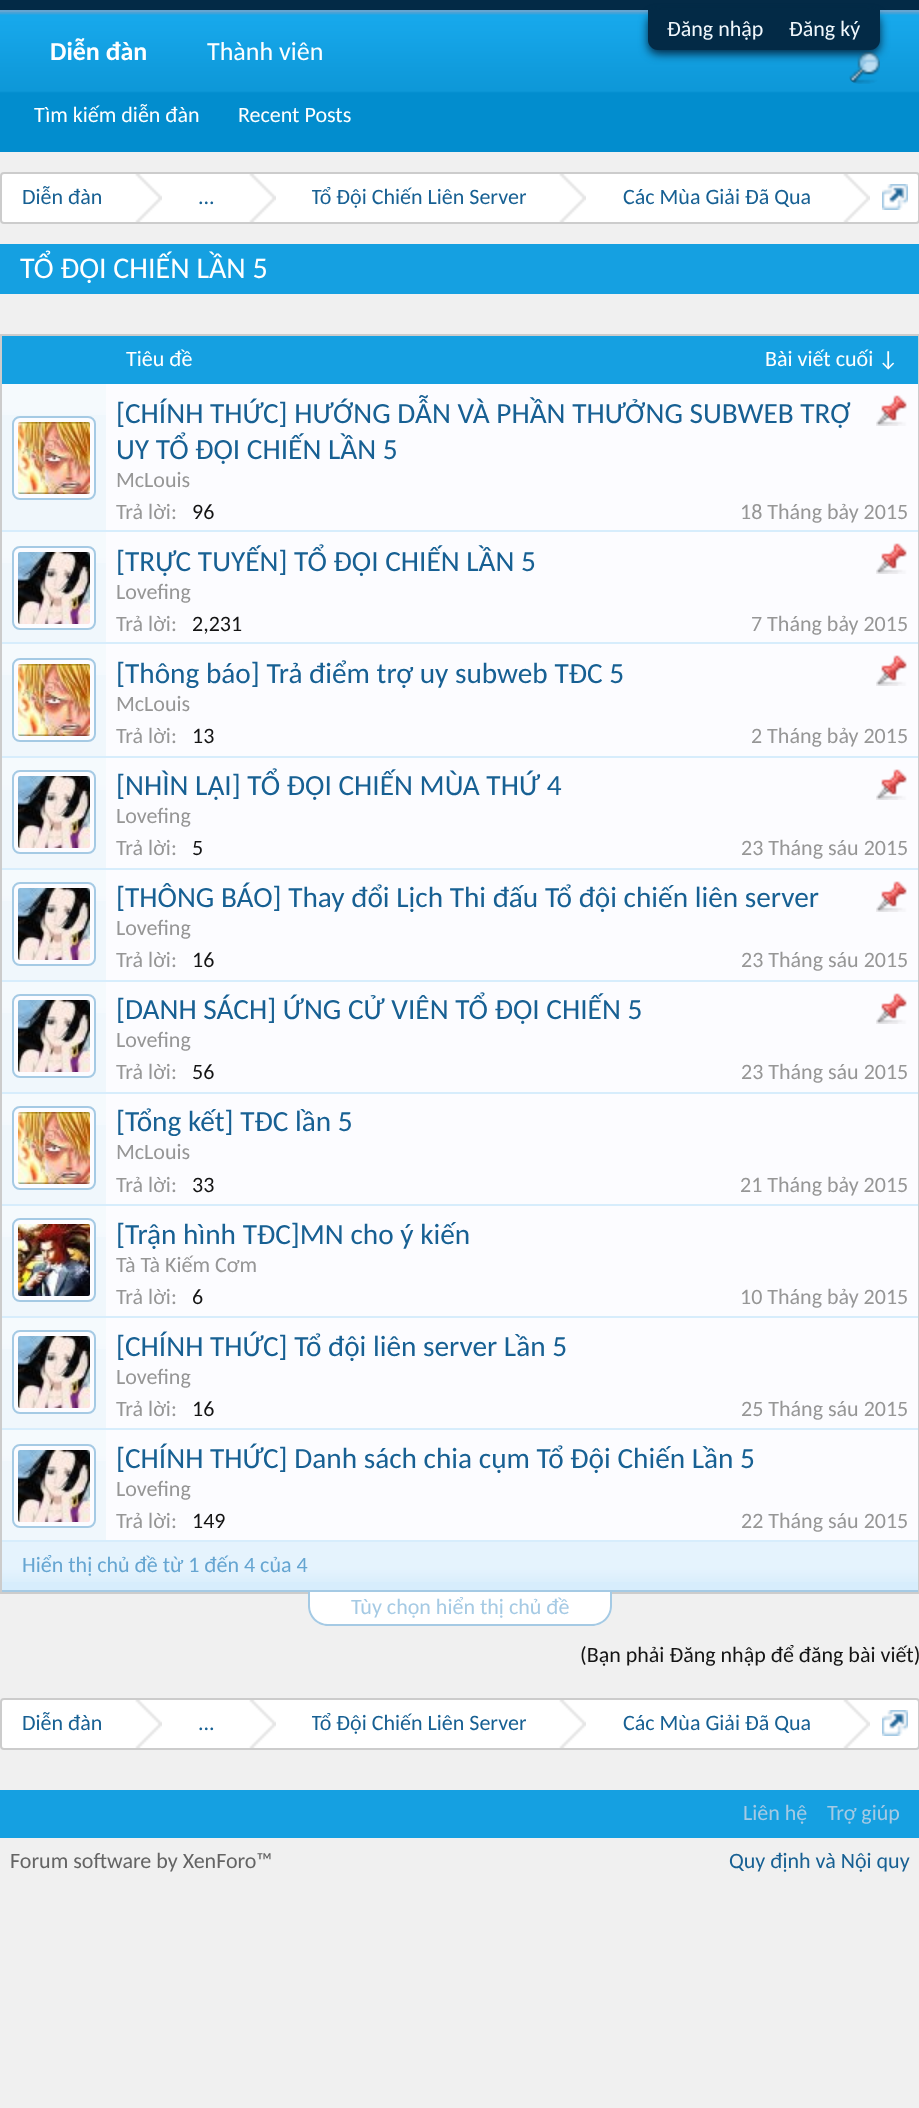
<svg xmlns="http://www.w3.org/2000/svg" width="919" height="2108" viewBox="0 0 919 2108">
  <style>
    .t1 { font: 22px Carlito; fill: #f0f7fc; }
    .t2 { font: bold 26px Carlito; fill: #fff; }
    .t3 { font: 22px Carlito; fill: #fff; }
    .t4 { font: 26px Carlito; fill: #fff; }
    .t5 { font: 22px Carlito; fill: #176093; }
    .t6 { font: 30px Carlito; fill: #fff; }
    .t7 { font: 29.3px Carlito; fill: #176093; }
    .t8 { font: 22px Carlito; fill: #969696; }
    .t9 { font: 22px Carlito; fill: #141414; }
    .t10 { font: 22px Carlito; fill: #65a5d1; }
    .t11 { font: 22px Carlito; fill: #a5cae4; }
    .t12 { font: 22px Carlito; fill: #646464; }
  </style>
  <defs>
    <clipPath id="clip1"><rect x="312" y="174" width="214" height="48"/></clipPath>
    <clipPath id="clip2"><rect x="312" y="1700" width="214" height="48"/></clipPath>
  </defs>
  <rect width="100%" height="100%" fill="#f0f0f0"/>
  <rect x="0" y="0" width="919" height="10" fill="#032a46"/>
  <rect x="0" y="10" width="919" height="2" fill="#65a5d1"/>
  <image x="0" y="12" width="919" height="140" href="images/1.png"/>
  <rect x="648" y="14" width="232" height="40" rx="10" fill="#032a46" filter="blur(5px)"/>
  <path d="M648 10H880V40C880 45.5 875.5 50 870 50H658C652.5 50 648 45.5 648 40Z" fill="#032a46"/>
  <text x="667" y="36" class="t1">Đăng nhập</text>
  <text x="789" y="36" class="t1">Đăng ký</text>
  <text x="50" y="60" class="t2">Diễn đàn</text>
  <text x="34" y="122" class="t3">Tìm kiếm diễn đàn</text>
  <text x="238" y="122" class="t3">Recent Posts</text>
  <text x="207" y="60" class="t4">Thành viên</text>
  <image x="849" y="52" width="31" height="32" href="images/2.png"/>
  <rect x="1" y="173" width="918" height="50" rx="3" fill="#fff" stroke="#ccc" stroke-width="2"/>
  <text x="22" y="204" class="t5">Diễn đàn</text>
  <image x="135" y="174" width="27" height="48" href="images/3.png"/>
  <text x="198" y="204" class="t5">...</text>
  <image x="249" y="174" width="27" height="48" href="images/3.png"/>
  <g clip-path="url(#clip1)">
    <text x="311" y="204" class="t5">Tổ Đội Chiến Liên Server</text>
  </g>
  <image x="559" y="174" width="27" height="48" href="images/3.png"/>
  <text x="623" y="204" class="t5">Các Mùa Giải Đã Qua</text>
  <image x="843" y="174" width="27" height="48" href="images/3.png"/>
  <image x="882" y="184" width="26" height="26" href="images/4.png"/>
  <rect x="0" y="244" width="919" height="50" fill="#15a0e1"/>
  <text x="20" y="278" class="t6">TỔ ĐỘI CHIẾN LẦN 5</text>
  <rect x="1" y="335" width="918" height="1258" fill="none" stroke="#ccc" stroke-width="2"/>
  <rect x="2" y="336" width="916" height="48" fill="#15a0e1"/>
  <text x="126" y="366" class="t3">Tiêu đề</text>
  <text x="765" y="366" class="t3">Bài viết cuối ↓</text>
  <rect x="106" y="384" width="812" height="146" fill="#fcfcff"/>
  <rect x="2" y="530" width="916" height="2" fill="#d7edfc"/>
  <rect x="2" y="384" width="104" height="146" fill="#f0f7fc"/>
  <image x="2" y="384" width="104" height="31" href="images/5.png"/>
  <rect x="13" y="417" width="82" height="82" rx="7" fill="#fcfcff" stroke="#a5cae4" stroke-width="2"/>
  <image x="18" y="422" width="72" height="72" href="images/6.png"/>
  <text x="116" y="423" class="t7">[CHÍNH THỨC] HƯỚNG DẪN VÀ PHẦN THƯỞNG SUBWEB TRỢ</text>
  <text x="116" y="459" class="t7">UY TỔ ĐỘI CHIẾN LẦN 5</text>
  <image x="876" y="395" width="31" height="31" href="images/7.png"/>
  <text x="116" y="487" class="t8">McLouis</text>
  <text x="116" y="519" class="t8">Trả lời:</text>
  <text x="192" y="519" class="t9">96</text>
  <text x="740" y="519" class="t8">18 Tháng bảy 2015</text>
  <rect x="106" y="532" width="812" height="110" fill="#fcfcff"/>
  <rect x="2" y="642" width="916" height="2" fill="#d7edfc"/>
  <rect x="2" y="532" width="104" height="110" fill="#f0f7fc"/>
  <image x="2" y="532" width="104" height="31" href="images/5.png"/>
  <rect x="13" y="547" width="82" height="82" rx="7" fill="#fcfcff" stroke="#a5cae4" stroke-width="2"/>
  <image x="18" y="552" width="72" height="72" href="images/8.png"/>
  <text x="116" y="571" class="t7">[TRỰC TUYẾN] TỔ ĐỘI CHIẾN LẦN 5</text>
  <image x="876" y="543" width="31" height="31" href="images/7.png"/>
  <text x="116" y="599" class="t8">Lovefing</text>
  <text x="116" y="631" class="t8">Trả lời:</text>
  <text x="192" y="631" class="t9">2,231</text>
  <text x="751" y="631" class="t8">7 Tháng bảy 2015</text>
  <rect x="106" y="644" width="812" height="112" fill="#fcfcff"/>
  <rect x="2" y="756" width="916" height="2" fill="#d7edfc"/>
  <rect x="2" y="644" width="104" height="112" fill="#f0f7fc"/>
  <image x="2" y="644" width="104" height="31" href="images/5.png"/>
  <rect x="13" y="659" width="82" height="82" rx="7" fill="#fcfcff" stroke="#a5cae4" stroke-width="2"/>
  <image x="18" y="664" width="72" height="72" href="images/6.png"/>
  <text x="116" y="683" class="t7">[Thông báo] Trả điểm trợ uy subweb TĐC 5</text>
  <image x="876" y="655" width="31" height="31" href="images/7.png"/>
  <text x="116" y="711" class="t8">McLouis</text>
  <text x="116" y="743" class="t8">Trả lời:</text>
  <text x="192" y="743" class="t9">13</text>
  <text x="751" y="743" class="t8">2 Tháng bảy 2015</text>
  <rect x="106" y="758" width="812" height="110" fill="#fcfcff"/>
  <rect x="2" y="868" width="916" height="2" fill="#d7edfc"/>
  <rect x="2" y="758" width="104" height="110" fill="#f0f7fc"/>
  <image x="2" y="758" width="104" height="32" href="images/9.png"/>
  <rect x="13" y="771" width="82" height="82" rx="7" fill="#fcfcff" stroke="#a5cae4" stroke-width="2"/>
  <image x="18" y="776" width="72" height="72" href="images/8.png"/>
  <text x="116" y="795" class="t7">[NHÌN LẠI] TỔ ĐỘI CHIẾN MÙA THỨ 4</text>
  <image x="876" y="769" width="31" height="31" href="images/7.png"/>
  <text x="116" y="823" class="t8">Lovefing</text>
  <text x="116" y="855" class="t8">Trả lời:</text>
  <text x="192" y="855" class="t9">5</text>
  <text x="741" y="855" class="t8">23 Tháng sáu 2015</text>
  <rect x="106" y="870" width="812" height="110" fill="#fcfcff"/>
  <rect x="2" y="980" width="916" height="2" fill="#d7edfc"/>
  <rect x="2" y="870" width="104" height="110" fill="#f0f7fc"/>
  <image x="2" y="870" width="104" height="31" href="images/5.png"/>
  <rect x="13" y="883" width="82" height="82" rx="7" fill="#fcfcff" stroke="#a5cae4" stroke-width="2"/>
  <image x="18" y="888" width="72" height="72" href="images/8.png"/>
  <text x="116" y="907" class="t7">[THÔNG BÁO] Thay đổi Lịch Thi đấu Tổ đội chiến liên server</text>
  <image x="876" y="881" width="31" height="31" href="images/7.png"/>
  <text x="116" y="935" class="t8">Lovefing</text>
  <text x="116" y="967" class="t8">Trả lời:</text>
  <text x="192" y="967" class="t9">16</text>
  <text x="741" y="967" class="t8">23 Tháng sáu 2015</text>
  <rect x="106" y="982" width="812" height="110" fill="#fcfcff"/>
  <rect x="2" y="1092" width="916" height="2" fill="#d7edfc"/>
  <rect x="2" y="982" width="104" height="110" fill="#f0f7fc"/>
  <image x="2" y="982" width="104" height="31" href="images/5.png"/>
  <rect x="13" y="995" width="82" height="82" rx="7" fill="#fcfcff" stroke="#a5cae4" stroke-width="2"/>
  <image x="18" y="1000" width="72" height="72" href="images/8.png"/>
  <text x="116" y="1019" class="t7">[DANH SÁCH] ỨNG CỬ VIÊN TỔ ĐỘI CHIẾN 5</text>
  <image x="876" y="993" width="31" height="31" href="images/7.png"/>
  <text x="116" y="1047" class="t8">Lovefing</text>
  <text x="116" y="1079" class="t8">Trả lời:</text>
  <text x="192" y="1079" class="t9">56</text>
  <text x="741" y="1079" class="t8">23 Tháng sáu 2015</text>
  <rect x="106" y="1094" width="812" height="110" fill="#fcfcff"/>
  <rect x="2" y="1204" width="916" height="2" fill="#d7edfc"/>
  <rect x="2" y="1094" width="104" height="110" fill="#f0f7fc"/>
  <image x="2" y="1094" width="104" height="31" href="images/5.png"/>
  <rect x="13" y="1107" width="82" height="82" rx="7" fill="#fcfcff" stroke="#a5cae4" stroke-width="2"/>
  <image x="18" y="1112" width="72" height="72" href="images/6.png"/>
  <text x="116" y="1131" class="t7">[Tổng kết] TĐC lần 5</text>
  <text x="116" y="1159" class="t8">McLouis</text>
  <text x="116" y="1192" class="t8">Trả lời:</text>
  <text x="192" y="1192" class="t9">33</text>
  <text x="740" y="1192" class="t8">21 Tháng bảy 2015</text>
  <rect x="106" y="1206" width="812" height="110" fill="#fcfcff"/>
  <rect x="2" y="1316" width="916" height="2" fill="#d7edfc"/>
  <rect x="2" y="1206" width="104" height="110" fill="#f0f7fc"/>
  <image x="2" y="1206" width="104" height="31" href="images/5.png"/>
  <rect x="13" y="1219" width="82" height="82" rx="7" fill="#fcfcff" stroke="#a5cae4" stroke-width="2"/>
  <image x="18" y="1224" width="72" height="72" href="images/10.png"/>
  <text x="116" y="1244" class="t7">[Trận hình TĐC]MN cho ý kiến</text>
  <text x="116" y="1272" class="t8">Tà Tà Kiếm Cơm</text>
  <text x="116" y="1304" class="t8">Trả lời:</text>
  <text x="192" y="1304" class="t9">6</text>
  <text x="740" y="1304" class="t8">10 Tháng bảy 2015</text>
  <rect x="106" y="1318" width="812" height="110" fill="#fcfcff"/>
  <rect x="2" y="1428" width="916" height="2" fill="#d7edfc"/>
  <rect x="2" y="1318" width="104" height="110" fill="#f0f7fc"/>
  <image x="2" y="1318" width="104" height="31" href="images/5.png"/>
  <rect x="13" y="1331" width="82" height="82" rx="7" fill="#fcfcff" stroke="#a5cae4" stroke-width="2"/>
  <image x="18" y="1336" width="72" height="72" href="images/8.png"/>
  <text x="116" y="1356" class="t7">[CHÍNH THỨC] Tổ đội liên server Lần 5</text>
  <text x="116" y="1384" class="t8">Lovefing</text>
  <text x="116" y="1416" class="t8">Trả lời:</text>
  <text x="192" y="1416" class="t9">16</text>
  <text x="741" y="1416" class="t8">25 Tháng sáu 2015</text>
  <rect x="106" y="1430" width="812" height="110" fill="#fcfcff"/>
  <rect x="2" y="1540" width="916" height="50" fill="#d7edfc"/>
  <rect x="2" y="1430" width="104" height="110" fill="#f0f7fc"/>
  <image x="2" y="1430" width="104" height="31" href="images/5.png"/>
  <rect x="13" y="1445" width="82" height="82" rx="7" fill="#fcfcff" stroke="#a5cae4" stroke-width="2"/>
  <image x="18" y="1450" width="72" height="72" href="images/8.png"/>
  <text x="116" y="1468" class="t7">[CHÍNH THỨC] Danh sách chia cụm Tổ Đội Chiến Lần 5</text>
  <text x="116" y="1496" class="t8">Lovefing</text>
  <text x="116" y="1528" class="t8">Trả lời:</text>
  <text x="192" y="1528" class="t9">149</text>
  <text x="741" y="1528" class="t8">22 Tháng sáu 2015</text>
  <image x="2" y="1542" width="916" height="40" href="images/11.png"/>
  <rect x="2" y="1590" width="916" height="2" fill="#a5cae4"/>
  <text x="22" y="1572" class="t10">Hiển thị chủ đề từ 1 đến 4 của 4</text>
  <path d="M308 1592H612V1606C612 1617 603 1626 592 1626H328C317 1626 308 1617 308 1606Z" fill="#fff"/>
  <path d="M308 1592H612V1606C612 1617 603 1626 592 1626H328C317 1626 308 1617 308 1606ZM310 1592H610V1606C610 1616 602 1624 592 1624H328C318 1624 310 1616 310 1606Z" fill="#a5cae4" fill-rule="evenodd"/>
  <text x="351" y="1614" class="t11">Tùy chọn hiển thị chủ đề</text>
  <text x="580" y="1662" class="t9">(Bạn phải Đăng nhập để đăng bài viết)</text>
  <rect x="1" y="1699" width="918" height="50" rx="3" fill="#fff" stroke="#ccc" stroke-width="2"/>
  <text x="22" y="1730" class="t5">Diễn đàn</text>
  <image x="135" y="1700" width="27" height="48" href="images/3.png"/>
  <text x="198" y="1730" class="t5">...</text>
  <image x="249" y="1700" width="27" height="48" href="images/3.png"/>
  <g clip-path="url(#clip2)">
    <text x="311" y="1730" class="t5">Tổ Đội Chiến Liên Server</text>
  </g>
  <image x="559" y="1700" width="27" height="48" href="images/3.png"/>
  <text x="623" y="1730" class="t5">Các Mùa Giải Đã Qua</text>
  <image x="843" y="1700" width="27" height="48" href="images/3.png"/>
  <image x="882" y="1710" width="26" height="26" href="images/4.png"/>
  <rect x="0" y="1790" width="919" height="48" fill="#15a0e1"/>
  <text x="743" y="1820" class="t11">Liên hệ</text>
  <text x="827" y="1820" class="t11">Trợ giúp</text>
  <text x="10" y="1868" class="t12">Forum software by XenForo™</text>
  <text x="729" y="1868" class="t5">Quy định và Nội quy</text>
</svg>
